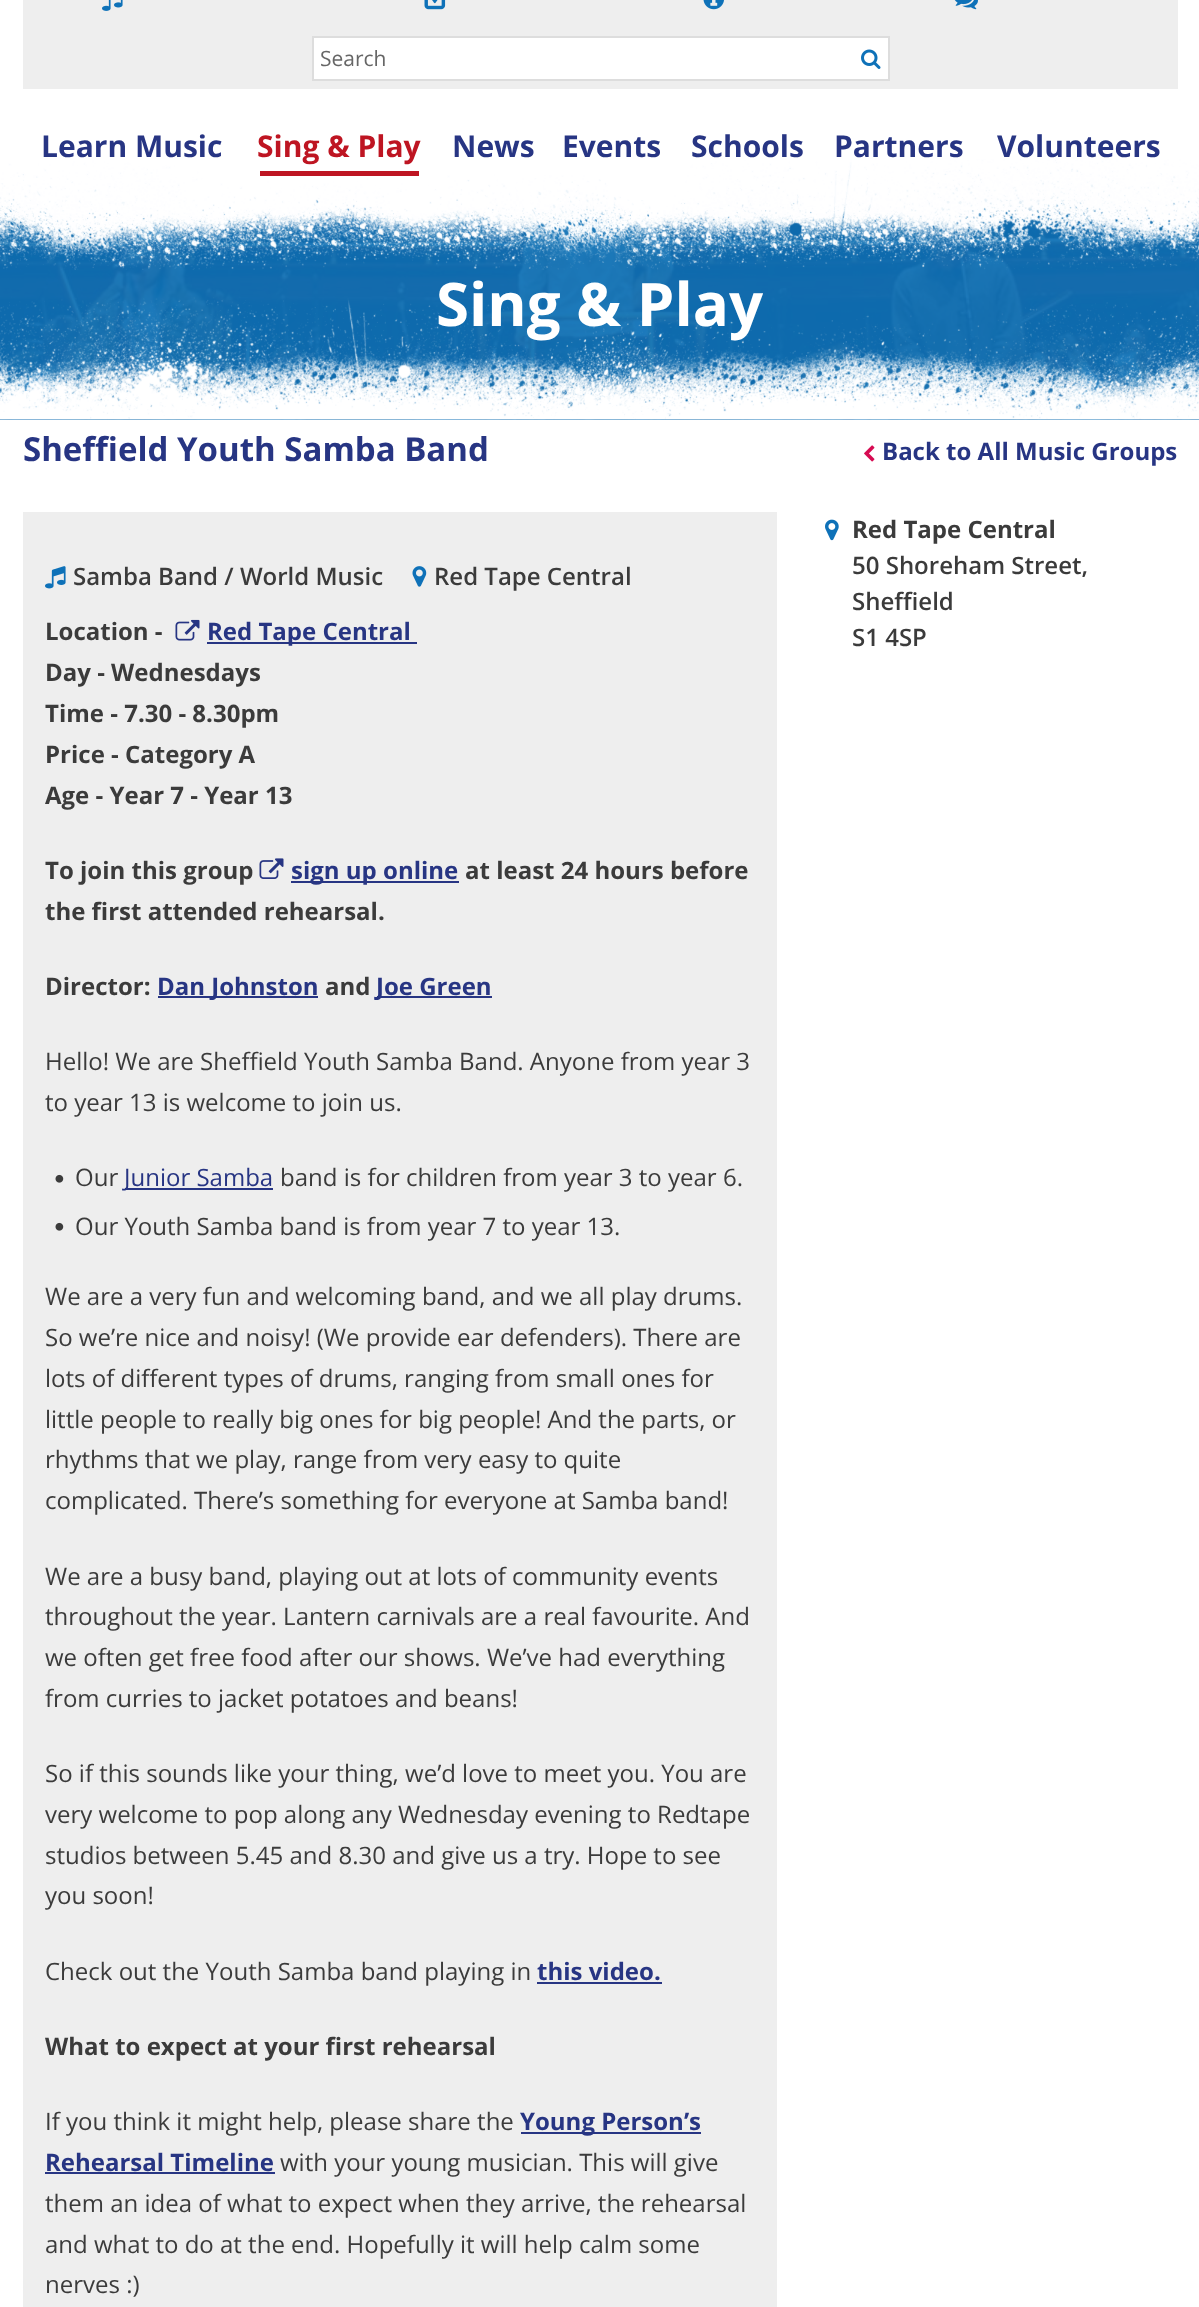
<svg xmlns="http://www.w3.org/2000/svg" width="1199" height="2307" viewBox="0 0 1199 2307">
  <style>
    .t1 { font: 21px Open Sans; fill: #666; }
    .t2 { font: bold 30px Open Sans; fill: #273583; }
    .t3 { font: bold 30px Open Sans; fill: #be1522; }
    .t4 { font: bold 60px Open Sans; fill: #fff; }
    .t5 { font: bold 33px Open Sans; fill: #273583; }
    .t6 { font: bold 24px Open Sans; fill: #273583; }
    .t7 { font: 600 24px Open Sans; fill: #3b3b3b; }
    .t8 { font: bold 24px Open Sans; fill: #3b3b3b; }
    .t9 { font: 24px Open Sans; fill: #3b3b3b; }
    .t10 { font: 24px Open Sans; fill: #273583; }
  </style>
  <rect width="100%" height="100%" fill="#fff"/>
  <rect x="23" y="0" width="1155" height="89" fill="#eee"/>
  <image x="102" y="0" width="21" height="11" href="images/1.png"/>
  <image x="424" y="0" width="22" height="10" href="images/2.png"/>
  <image x="703" y="0" width="21" height="10" href="images/3.png"/>
  <image x="954" y="0" width="24" height="10" href="images/4.png"/>
  <rect x="313" y="37" width="576" height="43" fill="#fff" stroke="#ddd" stroke-width="2"/>
  <text x="320" y="66" class="t1">Search</text>
  <image x="861" y="49" width="20" height="20" href="images/5.png"/>
  <image x="0" y="159" width="1199" height="261" href="images/7.png"/>
  <image x="0" y="156" width="1199" height="114" href="images/6.png"/>
  <text x="41" y="157" class="t2">Learn Music</text>
  <text x="257" y="157" class="t3">Sing &amp; Play</text>
  <rect x="260" y="171" width="159" height="5" fill="#be1522"/>
  <text x="452" y="157" class="t2">News</text>
  <text x="562" y="157" class="t2">Events</text>
  <text x="691" y="157" class="t2">Schools</text>
  <text x="834" y="157" class="t2">Partners</text>
  <text x="997" y="157" class="t2">Volunteers</text>
  <image x="0" y="297" width="1199" height="123" href="images/8.png"/>
  <text x="436" y="326" class="t4">Sing &amp; Play</text>
  <text x="23" y="461" class="t5">Sheffield Youth Samba Band</text>
  <image x="864" y="445" width="11" height="17" href="images/9.png"/>
  <text x="882" y="460" class="t6">Back to All Music Groups</text>
  <rect x="23" y="512" width="754" height="1795" fill="#eee"/>
  <image x="45" y="566" width="21" height="23" href="images/10.png"/>
  <text x="73" y="585" class="t7">Samba Band / World Music</text>
  <image x="412" y="566" width="15" height="21" href="images/11.png"/>
  <text x="434" y="585" class="t7">Red Tape Central</text>
  <text x="45" y="640" class="t8">Location -</text>
  <image x="175" y="619" width="25" height="22" href="images/12.png"/>
  <rect x="207" y="642" width="210" height="2" fill="#273583"/>
  <text x="207" y="640" class="t6">Red Tape Central</text>
  <text x="45" y="681" class="t8">Day - Wednesdays</text>
  <text x="45" y="722" class="t8">Time - 7.30 - 8.30pm</text>
  <text x="45" y="763" class="t8">Price - Category A</text>
  <text x="45" y="804" class="t8">Age - Year 7 - Year 13</text>
  <text x="45" y="879" class="t8">To join this group</text>
  <image x="259" y="858" width="25" height="21" href="images/13.png"/>
  <rect x="291" y="881" width="168" height="2" fill="#273583"/>
  <text x="291" y="879" class="t6">sign up online</text>
  <text x="465" y="879" class="t8">at least 24 hours before</text>
  <text x="45" y="920" class="t8">the first attended rehearsal.</text>
  <text x="45" y="995" class="t8">Director:</text>
  <rect x="158" y="996" width="160" height="2" fill="#273583"/>
  <text x="157" y="995" class="t6">Dan Johnston</text>
  <text x="325" y="995" class="t8">and</text>
  <rect x="377" y="996" width="115" height="2" fill="#273583"/>
  <text x="376" y="995" class="t6">Joe Green</text>
  <text x="45" y="1070" class="t9">Hello! We are Sheffield Youth Samba Band. Anyone from year 3</text>
  <text x="45" y="1111" class="t9">to year 13 is welcome to join us.</text>
  <image x="55" y="1174" width="9" height="9" href="images/14.png"/>
  <text x="75" y="1186" class="t9">Our</text>
  <rect x="125" y="1188" width="148" height="2" fill="#273583"/>
  <text x="124" y="1186" class="t10">Junior Samba</text>
  <text x="280" y="1186" class="t9">band is for children from year 3 to year 6.</text>
  <image x="55" y="1222" width="9" height="9" href="images/14.png"/>
  <text x="75" y="1235" class="t9">Our Youth Samba band is from year 7 to year 13.</text>
  <text x="45" y="1305" class="t9">We are a very fun and welcoming band, and we all play drums.</text>
  <text x="45" y="1346" class="t9">So we’re nice and noisy! (We provide ear defenders). There are</text>
  <text x="45" y="1387" class="t9">lots of different types of drums, ranging from small ones for</text>
  <text x="45" y="1428" class="t9">little people to really big ones for big people! And the parts, or</text>
  <text x="45" y="1468" class="t9">rhythms that we play, range from very easy to quite</text>
  <text x="45" y="1509" class="t9">complicated. There’s something for everyone at Samba band!</text>
  <text x="45" y="1585" class="t9">We are a busy band, playing out at lots of community events</text>
  <text x="45" y="1625" class="t9">throughout the year. Lantern carnivals are a real favourite. And</text>
  <text x="45" y="1666" class="t9">we often get free food after our shows. We’ve had everything</text>
  <text x="45" y="1707" class="t9">from curries to jacket potatoes and beans!</text>
  <text x="45" y="1782" class="t9">So if this sounds like your thing, we’d love to meet you. You are</text>
  <text x="45" y="1823" class="t9">very welcome to pop along any Wednesday evening to Redtape</text>
  <text x="45" y="1864" class="t9">studios between 5.45 and 8.30 and give us a try. Hope to see</text>
  <text x="45" y="1904" class="t9">you soon!</text>
  <text x="45" y="1980" class="t9">Check out the Youth Samba band playing in</text>
  <text x="537" y="1980" class="t6">this video.</text>
  <rect x="537" y="1982" width="125" height="2" fill="#273583"/>
  <text x="45" y="2055" class="t8">What to expect at your first rehearsal</text>
  <text x="45" y="2130" class="t9">If you think it might help, please share the</text>
  <rect x="521" y="2132" width="180" height="2" fill="#273583"/>
  <text x="520" y="2130" class="t6">Young Person’s</text>
  <text x="45" y="2171" class="t6">Rehearsal Timeline</text>
  <rect x="45" y="2172" width="230" height="2" fill="#273583"/>
  <text x="280" y="2171" class="t9">with your young musician. This will give</text>
  <text x="45" y="2212" class="t9">them an idea of what to expect when they arrive, the rehearsal</text>
  <text x="45" y="2253" class="t9">and what to do at the end. Hopefully it will help calm some</text>
  <text x="45" y="2293" class="t9">nerves :)</text>
  <image x="825" y="519" width="14" height="22" href="images/15.png"/>
  <text x="852" y="538" class="t8">Red Tape Central</text>
  <text x="852" y="574" class="t7">50 Shoreham Street,</text>
  <text x="852" y="610" class="t7">Sheffield</text>
  <text x="852" y="646" class="t7">S1 4SP</text>
</svg>
